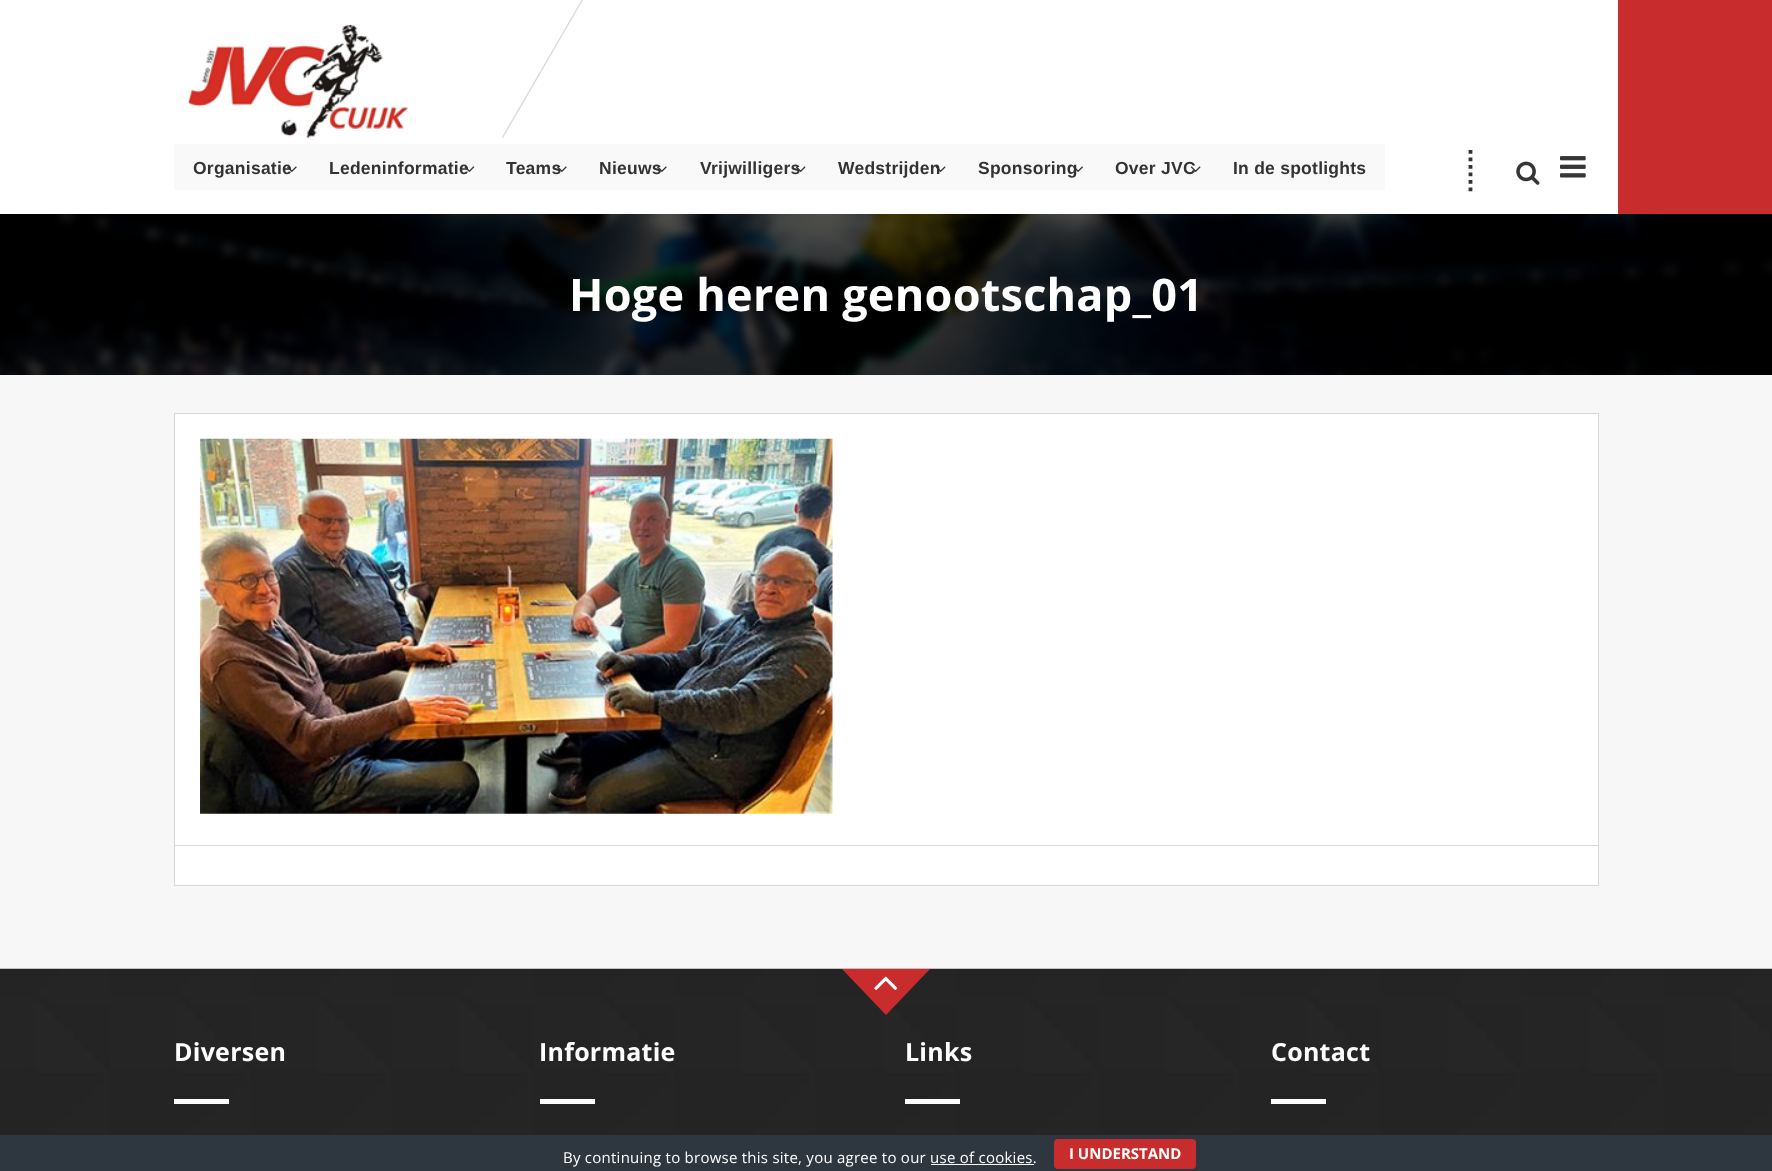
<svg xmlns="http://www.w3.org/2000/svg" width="1772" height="1171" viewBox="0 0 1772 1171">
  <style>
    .t1 { font: bold 17.5px Liberation Sans; letter-spacing: 0.25px; fill: #333; }
    .t2 { font: bold 45px Open Sans; letter-spacing: 0.25px; fill: #fff; }
    .t3 { font: bold 25px Open Sans; letter-spacing: 0.25px; fill: #fff; }
    .t4 { font: 15px Open Sans; letter-spacing: 0.25px; fill: #fff; }
    .t5 { font: bold 15px Open Sans; fill: #fff; }
  </style>
  <rect width="100%" height="100%" fill="#f7f7f7"/>
  <rect x="0" y="0" width="1618" height="214" fill="#fff"/>
  <image x="188" y="24" width="220" height="114" href="images/1.png"/>
  <path d="M582-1L583 0L503 138L502 137Z" fill="#dbdbdb"/>
  <rect x="174" y="144" width="1211" height="46" fill="#f9f9f9"/>
  <text x="193" y="174" class="t1">Organisatie</text>
  <image x="287" y="166" width="10" height="6" href="images/2.png"/>
  <text x="329" y="174" class="t1">Ledeninformatie</text>
  <image x="464" y="166" width="11" height="6" href="images/3.png"/>
  <text x="506" y="174" class="t1">Teams</text>
  <image x="557" y="166" width="10" height="6" href="images/4.png"/>
  <text x="599" y="174" class="t1">Nieuws</text>
  <image x="657" y="166" width="10" height="6" href="images/5.png"/>
  <text x="700" y="174" class="t1">Vrijwilligers</text>
  <image x="795" y="166" width="11" height="6" href="images/6.png"/>
  <text x="838" y="174" class="t1">Wedstrijden</text>
  <image x="935" y="166" width="11" height="6" href="images/7.png"/>
  <text x="978" y="174" class="t1">Sponsoring</text>
  <image x="1073" y="166" width="10" height="6" href="images/8.png"/>
  <text x="1115" y="174" class="t1">Over JVC</text>
  <image x="1190" y="166" width="11" height="6" href="images/9.png"/>
  <text x="1233" y="174" class="t1">In de spotlights</text>
  <path d="M1470.5 150V195" fill="none" stroke="#333" stroke-width="3.8" stroke-dasharray="3.75 3.75"/>
  <image x="1516" y="161" width="24" height="24" href="images/10.png"/>
  <image x="1560" y="156" width="26" height="22" href="images/11.png"/>
  <rect x="1618" y="0" width="154" height="214" fill="#c92c2c"/>
  <image x="0" y="214" width="1772" height="161" href="images/12.png"/>
  <text x="569" y="311" class="t2">Hoge heren genootschap_01</text>
  <rect x="174.5" y="413.5" width="1424" height="472" fill="#fff" stroke="#d7d8d8"/>
  <image x="200" y="438" width="633" height="376" href="images/13.png"/>
  <rect x="175" y="845" width="1423" height="1" fill="#d7d8d8"/>
  <image x="0" y="968" width="1772" height="167" href="images/14.png"/>
  <path d="M842 969H930L886 1015Z" fill="#c92c2c"/>
  <image x="874" y="976" width="24" height="14" href="images/15.png"/>
  <text x="174" y="1061" class="t3">Diversen</text>
  <rect x="174" y="1099" width="55" height="5" fill="#fff"/>
  <text x="539" y="1061" class="t3">Informatie</text>
  <rect x="540" y="1099" width="55" height="5" fill="#fff"/>
  <text x="905" y="1061" class="t3">Links</text>
  <rect x="905" y="1099" width="55" height="5" fill="#fff"/>
  <text x="1271" y="1061" class="t3">Contact</text>
  <rect x="1271" y="1099" width="55" height="5" fill="#fff"/>
  <rect x="0" y="1135" width="1772" height="36" fill="#2e363f"/>
  <text x="563" y="1163" class="t4">By continuing to browse this site, you agree to our use of cookies.</text>
  <rect x="1054" y="1139" width="142" height="30" rx="4" fill="#c92c2c"/>
  <text x="1069" y="1159" class="t5">I UNDERSTAND</text>
  <rect x="931" y="1164" width="103" height="1" fill="#fff"/>
</svg>
